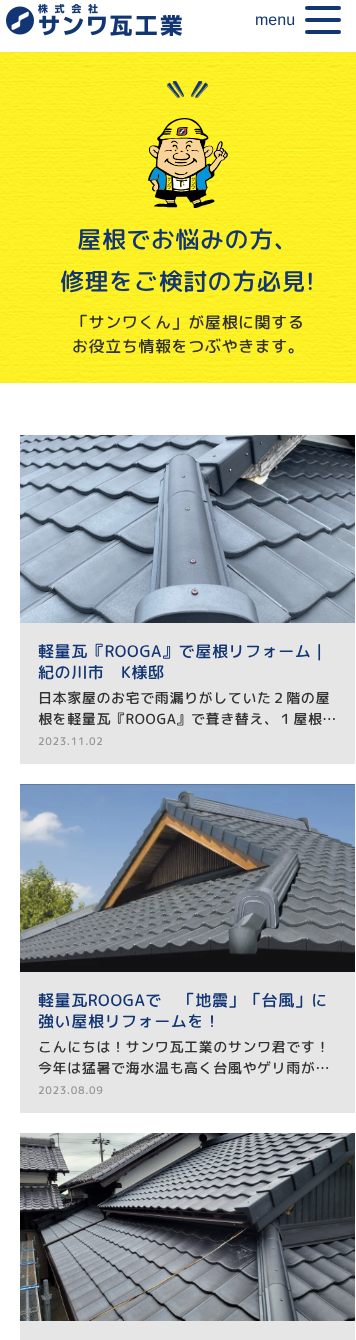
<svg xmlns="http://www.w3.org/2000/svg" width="356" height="1340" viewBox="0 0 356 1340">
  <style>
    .t1 { font: 16px Liberation Sans; fill: #123574; }
    .t2 { font: 500 24px 'Rounded Mplus 1c'; letter-spacing: 0.6px; fill: #123574; }
    .t3 { font: 500 16px 'Rounded Mplus 1c'; letter-spacing: 0.6px; fill: #323232; }
    .t4 { font: 500 16px 'Rounded Mplus 1c'; letter-spacing: 0.6px; fill: #123574; }
    .t5 { font: 500 14px 'Rounded Mplus 1c'; letter-spacing: 0.6px; fill: #323232; }
    .t6 { font: 500 10.5px 'Rounded Mplus 1c'; letter-spacing: 0.6px; fill: #969696; }
  </style>
  <rect width="100%" height="100%" fill="#fff"/>
  <image x="6" y="4" width="176" height="32" href="images/1.png"/>
  <text x="255" y="25" class="t1">menu</text>
  <rect x="305" y="6" width="36" height="4" rx="2" fill="#123574"/>
  <rect x="305" y="18" width="36" height="4" rx="2" fill="#123574"/>
  <rect x="305" y="30" width="36" height="4" rx="2" fill="#123574"/>
  <image x="0" y="52" width="356" height="331" href="images/2.png"/>
  <image x="167" y="81" width="17" height="17" href="images/3.png"/>
  <image x="191" y="81" width="17" height="17" href="images/4.png"/>
  <image x="148" y="118" width="80" height="90" href="images/5.png"/>
  <text x="77" y="248" class="t2">屋根でお悩みの方、</text>
  <text x="60" y="290" class="t2">修理をご検討の方必見!</text>
  <text x="72" y="328" class="t3">「サンワくん」が屋根に関する</text>
  <text x="72" y="352" class="t3">お役立ち情報をつぶやきます。</text>
  <rect x="20" y="623" width="335" height="141" fill="#e6e6e6"/>
  <image x="20" y="435" width="335" height="188" href="images/6.png"/>
  <text x="38" y="657" class="t4">軽量瓦『ROOGA』で屋根リフォーム｜</text>
  <text x="38" y="678" class="t4">紀の川市　K様邸</text>
  <text x="38" y="703" class="t5">日本家屋のお宅で雨漏りがしていた２階の屋</text>
  <text x="38" y="724" class="t5">根を軽量瓦『ROOGA』で葺き替え、１屋根…</text>
  <text x="38" y="745" class="t6">2023.11.02</text>
  <rect x="20" y="972" width="335" height="141" fill="#e6e6e6"/>
  <image x="20" y="784" width="335" height="188" href="images/7.png"/>
  <text x="38" y="1006" class="t4">軽量瓦ROOGAで　「地震」「台風」に</text>
  <text x="38" y="1027" class="t4">強い屋根リフォームを！</text>
  <text x="38" y="1052" class="t5">こんにちは！サンワ瓦工業のサンワ君です！</text>
  <text x="38" y="1073" class="t5">今年は猛暑で海水温も高く台風やゲリ雨が…</text>
  <text x="38" y="1094" class="t6">2023.08.09</text>
  <rect x="20" y="1321" width="335" height="19" fill="#e6e6e6"/>
  <image x="20" y="1133" width="335" height="188" href="images/8.png"/>
</svg>
